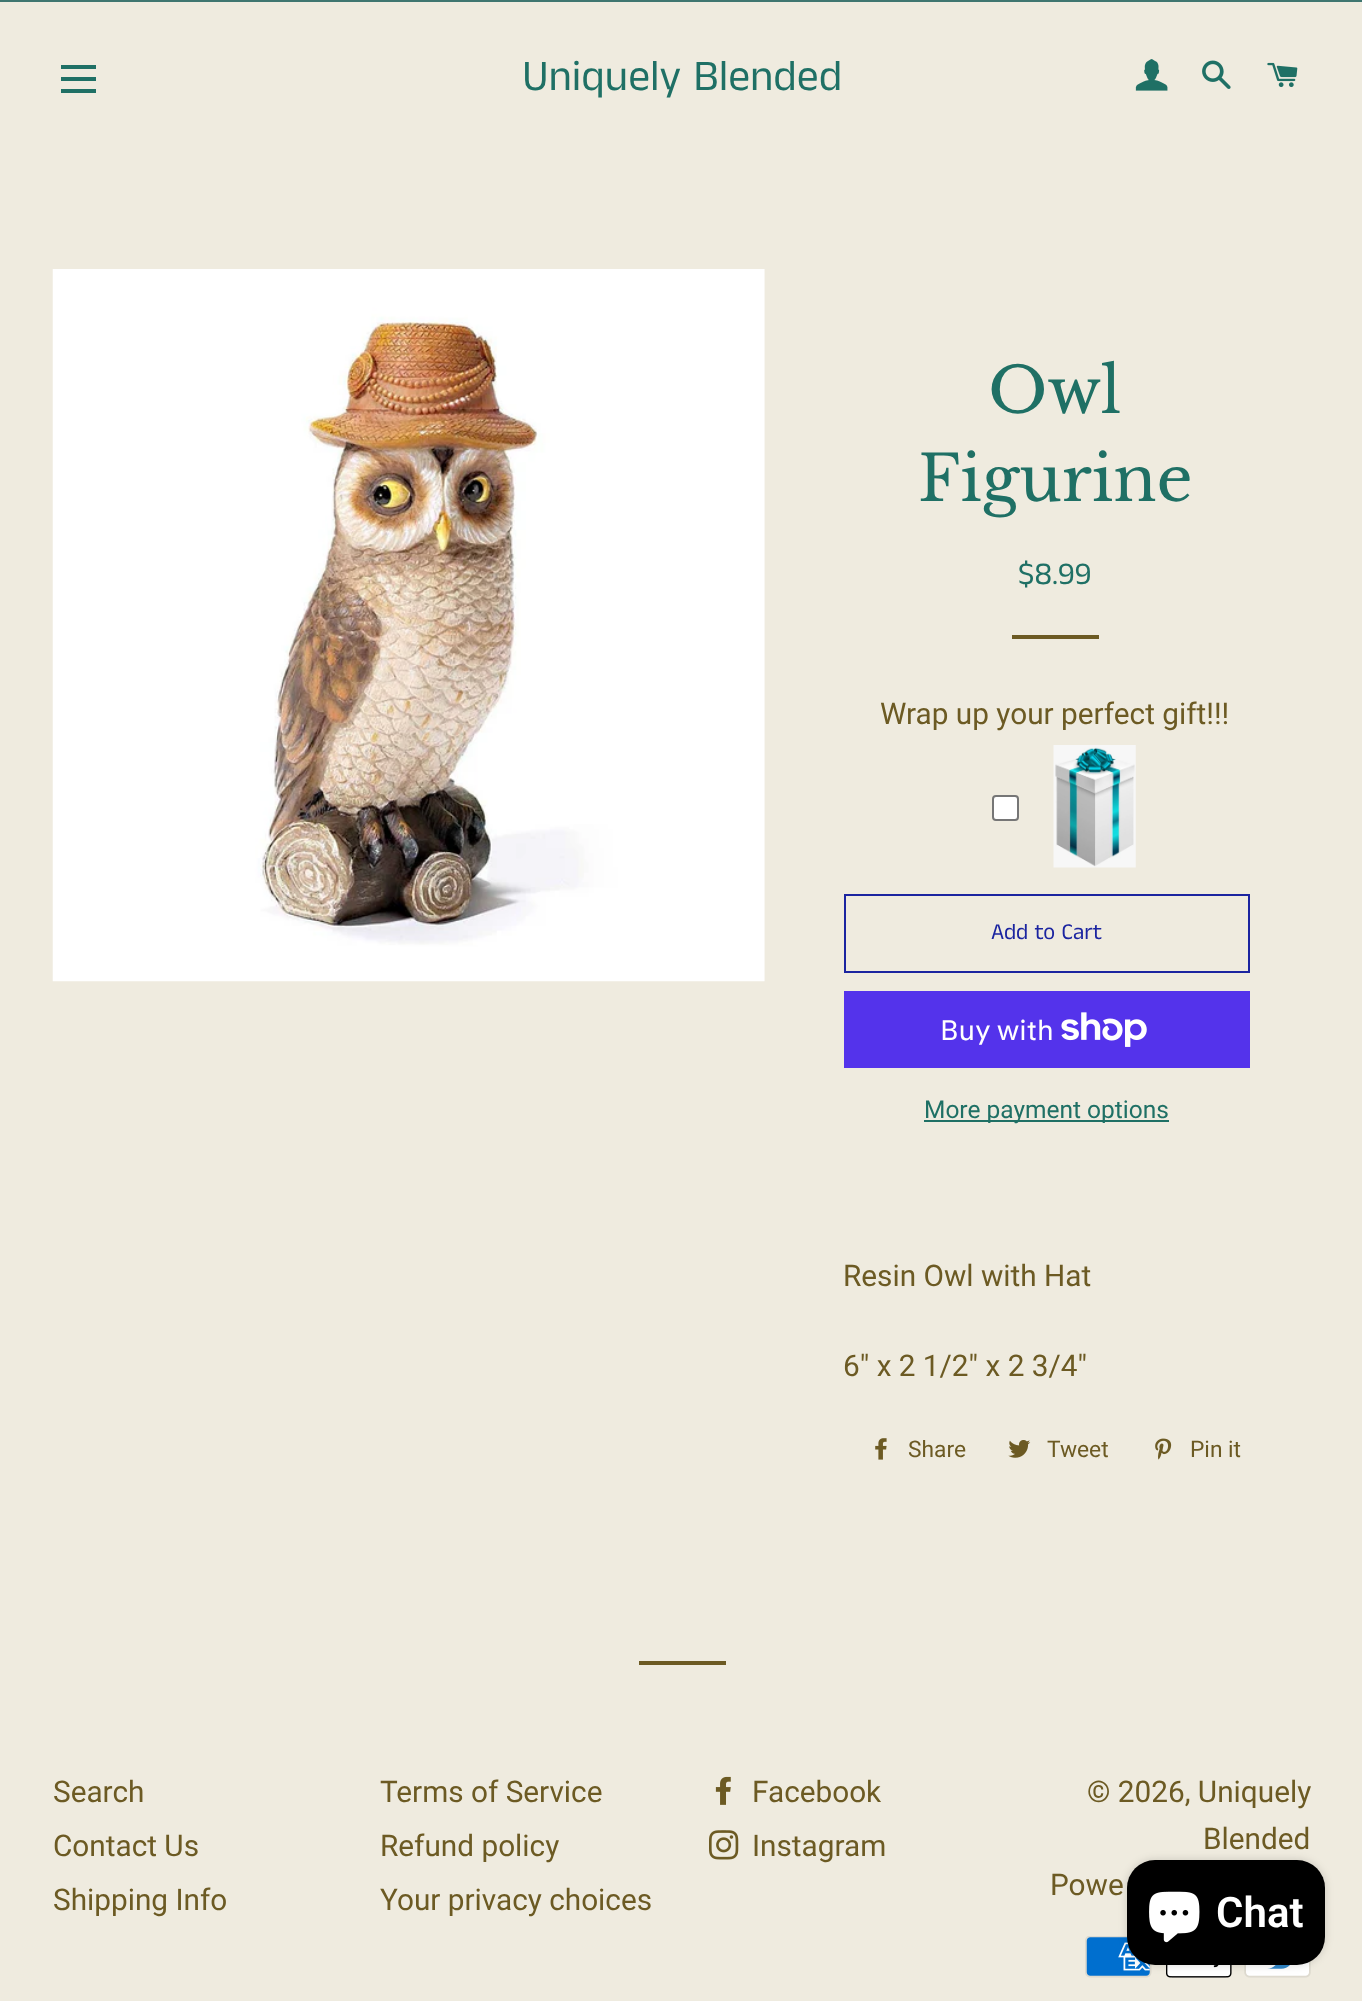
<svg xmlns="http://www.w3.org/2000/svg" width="1362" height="2001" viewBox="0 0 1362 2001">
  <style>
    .t1 { font: 43.75px Anek Tamil; fill: #1f7065; }
    .t2 { font: 63px Libre Baskerville; fill: #1f7065; }
    .t3 { font: 31.5px Anek Tamil; fill: #1f7065; }
    .t4 { font: 29.75px Roboto; fill: #6c5a23; }
    .t5 { font: 22.75px Anek Tamil; fill: #1b24a0; }
    .t6 { font: 28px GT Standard; fill: #fff; }
    .t7 { font: 24.5px Roboto; fill: #1f7065; }
    .t8 { font: 22.75px Roboto; fill: #6c5a23; }
    .t9 { font: 600 42px Roboto; fill: #fff; }
  </style>
  <rect width="100%" height="100%" fill="#efebdf"/>
  <rect x="0" y="0" width="1362" height="2" fill="#3f7670"/>
  <rect x="61" y="65" width="35" height="4" fill="#1f7065"/>
  <rect x="61" y="77" width="35" height="4" fill="#1f7065"/>
  <rect x="61" y="89" width="35" height="4" fill="#1f7065"/>
  <text x="522" y="90" class="t1">Uniquely Blended</text>
  <image x="1135" y="59" width="33" height="32" href="images/1.png"/>
  <image x="1202" y="60" width="29" height="29" href="images/2.png"/>
  <image x="1267" y="62" width="31" height="26" href="images/3.png"/>
  <image x="52" y="269" width="713" height="713" href="images/4.png"/>
  <text x="988" y="413" class="t2">Owl</text>
  <text x="918" y="501" class="t2">Figurine</text>
  <text x="1018" y="584" class="t3">$8.99</text>
  <rect x="1012" y="635" width="87" height="4" fill="#6c5a23"/>
  <text x="880" y="724" class="t4">Wrap up your perfect gift!!!</text>
  <rect x="993" y="796" width="25" height="24" rx="3" fill="#fff" stroke="#767676" stroke-width="2"/>
  <image x="1053" y="745" width="83" height="123" href="images/5.png"/>
  <rect x="845" y="895" width="404" height="77" fill="none" stroke="#1b24a0" stroke-width="2"/>
  <text x="991" y="939" class="t5">Add to Cart</text>
  <rect x="844" y="991" width="406" height="77" fill="#5433eb"/>
  <text x="940" y="1040" class="t6">Buy with</text>
  <image x="1061" y="1012" width="86" height="35" href="images/6.png"/>
  <rect x="924" y="1120" width="245" height="2" fill="#1f7065"/>
  <text x="924" y="1118" class="t7">More payment options</text>
  <text x="843" y="1286" class="t4">Resin Owl with Hat</text>
  <text x="843" y="1376" class="t4">6" x 2 1/2" x 2 3/4"</text>
  <image x="875" y="1438" width="12" height="22" href="images/7.png"/>
  <text x="908" y="1457" class="t8">Share</text>
  <image x="1008" y="1440" width="23" height="18" href="images/8.png"/>
  <text x="1047" y="1457" class="t8">Tweet</text>
  <image x="1155" y="1438" width="17" height="22" href="images/9.png"/>
  <text x="1190" y="1457" class="t8">Pin it</text>
  <rect x="639" y="1661" width="87" height="4" fill="#6c5a23"/>
  <text x="53" y="1802" class="t4">Search</text>
  <text x="53" y="1856" class="t4">Contact Us</text>
  <text x="53" y="1910" class="t4">Shipping Info</text>
  <text x="380" y="1802" class="t4">Terms of Service</text>
  <text x="380" y="1856" class="t4">Refund policy</text>
  <text x="380" y="1910" class="t4">Your privacy choices</text>
  <image x="715" y="1776" width="16" height="29" href="images/10.png"/>
  <text x="752" y="1802" class="t4">Facebook</text>
  <image x="709" y="1830" width="30" height="30" href="images/11.png"/>
  <text x="752" y="1856" class="t4">Instagram</text>
  <text x="1087" y="1802" class="t4">© 2026, Uniquely</text>
  <text x="1203" y="1849" class="t4">Blended</text>
  <text x="1050" y="1895" class="t4">Powe</text>
  <image x="1085" y="1936" width="67" height="42" href="images/12.png"/>
  <image x="1166" y="1965" width="66" height="13" href="images/13.png"/>
  <image x="1244" y="1961" width="67" height="17" href="images/14.png"/>
  <rect x="1127" y="1860" width="198" height="105" rx="28" fill="#00000026" filter="blur(4.5px)"/>
  <rect x="1127" y="1860" width="198" height="105" rx="28" fill="#000"/>
  <image x="1149" y="1891" width="51" height="52" href="images/15.png"/>
  <text x="1216" y="1927" class="t9">Chat</text>
</svg>
